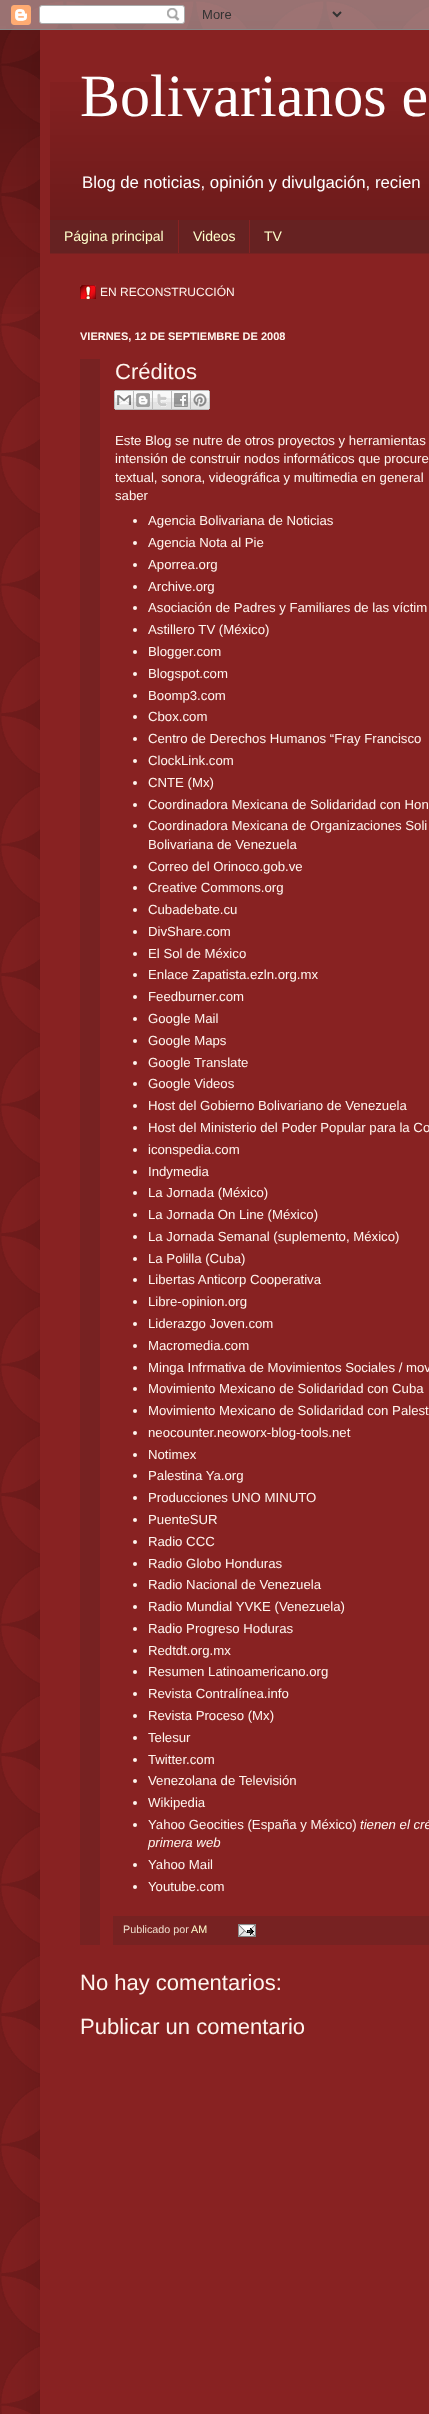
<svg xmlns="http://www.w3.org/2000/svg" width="429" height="2414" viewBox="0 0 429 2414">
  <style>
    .t1 { font: 60px Liberation Serif; fill: #fff; }
    .t2 { font: 16.8px Liberation Sans; fill: #fff; }
    .t3 { font: 14px Liberation Sans; fill: #ffc; }
    .t4 { font: 12px Liberation Sans; fill: #fff5ee; }
    .t5 { font: bold 11px Liberation Sans; fill: #fff5ee; }
    .t6 { font: 22px Liberation Sans; fill: #fff5ee; }
    .t7 { font: 13.2px Liberation Sans; fill: #fff5ee; }
    .t8 { font: italic 13.2px Liberation Sans; fill: #fff5ee; }
    .t9 { font: 10.75px Liberation Sans; fill: #edc; }
    .t10 { font: 10.75px Liberation Sans; fill: #ffc; }
  </style>
  <rect width="100%" height="100%" fill="#822"/>
  <image x="0" y="400" width="40" height="2014" href="images/1.png"/>
  <image x="0" y="0" width="429" height="400" href="images/2.png"/>
  <image x="0" y="0" width="429" height="314" href="images/3.png"/>
  <rect x="40" y="30" width="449" height="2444" fill="#00000026" filter="blur(20px)"/>
  <image x="0" y="0" width="429" height="30" href="images/4.png"/>
  <rect x="40" y="30" width="389" height="2384" fill="#822"/>
  <image x="50" y="82" width="379" height="138" href="images/5.png"/>
  <text x="80" y="116" class="t1">Bolivarianos e</text>
  <text x="82" y="188" class="t2">Blog de noticias, opinión y divulgación, recien</text>
  <rect x="50" y="220" width="379" height="33" fill="#622"/>
  <rect x="50" y="253" width="379" height="1" fill="#722"/>
  <text x="64" y="241" class="t3">Página principal</text>
  <rect x="178" y="220" width="1" height="33" fill="#822"/>
  <text x="193" y="241" class="t3">Videos</text>
  <rect x="249" y="220" width="1" height="33" fill="#822"/>
  <text x="264" y="241" class="t3">TV</text>
  <image x="80" y="285" width="16" height="14" href="images/6.png"/>
  <text x="100" y="296" class="t4">EN RECONSTRUCCIÓN</text>
  <text x="80" y="340" class="t5">VIERNES, 12 DE SEPTIEMBRE DE 2008</text>
  <rect x="80" y="359" width="20" height="1586" fill="#722"/>
  <text x="115" y="379" class="t6">Créditos</text>
  <image x="114" y="390" width="20" height="20" href="images/7.png"/>
  <image x="134" y="390" width="19" height="20" href="images/8.png"/>
  <image x="153" y="390" width="19" height="20" href="images/9.png"/>
  <image x="172" y="390" width="19" height="20" href="images/10.png"/>
  <image x="191" y="390" width="19" height="20" href="images/11.png"/>
  <text x="115" y="445" class="t7">Este Blog se nutre de otros proyectos y herramientas</text>
  <text x="115" y="463" class="t7">intensión de construir nodos informáticos que procure</text>
  <text x="115" y="482" class="t7">textual, sonora, videográfica y multimedia en general</text>
  <text x="115" y="500" class="t7">saber</text>
  <circle cx="135" cy="521" r="2" fill="#fff5ee"/>
  <text x="148" y="525" class="t7">Agencia Bolivariana de Noticias</text>
  <circle cx="135" cy="543" r="2" fill="#fff5ee"/>
  <text x="148" y="547" class="t7">Agencia Nota al Pie</text>
  <circle cx="135" cy="565" r="2" fill="#fff5ee"/>
  <text x="148" y="569" class="t7">Aporrea.org</text>
  <circle cx="135" cy="587" r="2" fill="#fff5ee"/>
  <text x="148" y="591" class="t7">Archive.org</text>
  <circle cx="135" cy="608" r="2" fill="#fff5ee"/>
  <text x="148" y="612" class="t7">Asociación de Padres y Familiares de las víctim</text>
  <circle cx="135" cy="630" r="2" fill="#fff5ee"/>
  <text x="148" y="634" class="t7">Astillero TV (México)</text>
  <circle cx="135" cy="652" r="2" fill="#fff5ee"/>
  <text x="148" y="656" class="t7">Blogger.com</text>
  <circle cx="135" cy="674" r="2" fill="#fff5ee"/>
  <text x="148" y="678" class="t7">Blogspot.com</text>
  <circle cx="135" cy="696" r="2" fill="#fff5ee"/>
  <text x="148" y="700" class="t7">Boomp3.com</text>
  <circle cx="135" cy="717" r="2" fill="#fff5ee"/>
  <text x="148" y="721" class="t7">Cbox.com</text>
  <circle cx="135" cy="739" r="2" fill="#fff5ee"/>
  <text x="148" y="743" class="t7">Centro de Derechos Humanos “Fray Francisco</text>
  <circle cx="135" cy="761" r="2" fill="#fff5ee"/>
  <text x="148" y="765" class="t7">ClockLink.com</text>
  <circle cx="135" cy="783" r="2" fill="#fff5ee"/>
  <text x="148" y="787" class="t7">CNTE (Mx)</text>
  <circle cx="135" cy="805" r="2" fill="#fff5ee"/>
  <text x="148" y="809" class="t7">Coordinadora Mexicana de Solidaridad con Hon</text>
  <circle cx="135" cy="826" r="2" fill="#fff5ee"/>
  <text x="148" y="830" class="t7">Coordinadora Mexicana de Organizaciones Soli</text>
  <text x="148" y="849" class="t7">Bolivariana de Venezuela</text>
  <circle cx="135" cy="867" r="2" fill="#fff5ee"/>
  <text x="148" y="871" class="t7">Correo del Orinoco.gob.ve</text>
  <circle cx="135" cy="888" r="2" fill="#fff5ee"/>
  <text x="148" y="892" class="t7">Creative Commons.org</text>
  <circle cx="135" cy="910" r="2" fill="#fff5ee"/>
  <text x="148" y="914" class="t7">Cubadebate.cu</text>
  <circle cx="135" cy="932" r="2" fill="#fff5ee"/>
  <text x="148" y="936" class="t7">DivShare.com</text>
  <circle cx="135" cy="954" r="2" fill="#fff5ee"/>
  <text x="148" y="958" class="t7">El Sol de México</text>
  <circle cx="135" cy="975" r="2" fill="#fff5ee"/>
  <text x="148" y="979" class="t7">Enlace Zapatista.ezln.org.mx</text>
  <circle cx="135" cy="997" r="2" fill="#fff5ee"/>
  <text x="148" y="1001" class="t7">Feedburner.com</text>
  <circle cx="135" cy="1019" r="2" fill="#fff5ee"/>
  <text x="148" y="1023" class="t7">Google Mail</text>
  <circle cx="135" cy="1041" r="2" fill="#fff5ee"/>
  <text x="148" y="1045" class="t7">Google Maps</text>
  <circle cx="135" cy="1063" r="2" fill="#fff5ee"/>
  <text x="148" y="1067" class="t7">Google Translate</text>
  <circle cx="135" cy="1084" r="2" fill="#fff5ee"/>
  <text x="148" y="1088" class="t7">Google Videos</text>
  <circle cx="135" cy="1106" r="2" fill="#fff5ee"/>
  <text x="148" y="1110" class="t7">Host del Gobierno Bolivariano de Venezuela</text>
  <circle cx="135" cy="1128" r="2" fill="#fff5ee"/>
  <text x="148" y="1132" class="t7">Host del Ministerio del Poder Popular para la Co</text>
  <circle cx="135" cy="1150" r="2" fill="#fff5ee"/>
  <text x="148" y="1154" class="t7">iconspedia.com</text>
  <circle cx="135" cy="1172" r="2" fill="#fff5ee"/>
  <text x="148" y="1176" class="t7">Indymedia</text>
  <circle cx="135" cy="1193" r="2" fill="#fff5ee"/>
  <text x="148" y="1197" class="t7">La Jornada (México)</text>
  <circle cx="135" cy="1215" r="2" fill="#fff5ee"/>
  <text x="148" y="1219" class="t7">La Jornada On Line (México)</text>
  <circle cx="135" cy="1237" r="2" fill="#fff5ee"/>
  <text x="148" y="1241" class="t7">La Jornada Semanal (suplemento, México)</text>
  <circle cx="135" cy="1259" r="2" fill="#fff5ee"/>
  <text x="148" y="1263" class="t7">La Polilla (Cuba)</text>
  <circle cx="135" cy="1280" r="2" fill="#fff5ee"/>
  <text x="148" y="1284" class="t7">Libertas Anticorp Cooperativa</text>
  <circle cx="135" cy="1302" r="2" fill="#fff5ee"/>
  <text x="148" y="1306" class="t7">Libre-opinion.org</text>
  <circle cx="135" cy="1324" r="2" fill="#fff5ee"/>
  <text x="148" y="1328" class="t7">Liderazgo Joven.com</text>
  <circle cx="135" cy="1346" r="2" fill="#fff5ee"/>
  <text x="148" y="1350" class="t7">Macromedia.com</text>
  <circle cx="135" cy="1368" r="2" fill="#fff5ee"/>
  <text x="148" y="1372" class="t7">Minga Infrmativa de Movimientos Sociales / mov</text>
  <circle cx="135" cy="1389" r="2" fill="#fff5ee"/>
  <text x="148" y="1393" class="t7">Movimiento Mexicano de Solidaridad con Cuba</text>
  <circle cx="135" cy="1411" r="2" fill="#fff5ee"/>
  <text x="148" y="1415" class="t7">Movimiento Mexicano de Solidaridad con Palest</text>
  <circle cx="135" cy="1433" r="2" fill="#fff5ee"/>
  <text x="148" y="1437" class="t7">neocounter.neoworx-blog-tools.net</text>
  <circle cx="135" cy="1455" r="2" fill="#fff5ee"/>
  <text x="148" y="1459" class="t7">Notimex</text>
  <circle cx="135" cy="1476" r="2" fill="#fff5ee"/>
  <text x="148" y="1480" class="t7">Palestina Ya.org</text>
  <circle cx="135" cy="1498" r="2" fill="#fff5ee"/>
  <text x="148" y="1502" class="t7">Producciones UNO MINUTO</text>
  <circle cx="135" cy="1520" r="2" fill="#fff5ee"/>
  <text x="148" y="1524" class="t7">PuenteSUR</text>
  <circle cx="135" cy="1542" r="2" fill="#fff5ee"/>
  <text x="148" y="1546" class="t7">Radio CCC</text>
  <circle cx="135" cy="1564" r="2" fill="#fff5ee"/>
  <text x="148" y="1568" class="t7">Radio Globo Honduras</text>
  <circle cx="135" cy="1585" r="2" fill="#fff5ee"/>
  <text x="148" y="1589" class="t7">Radio Nacional de Venezuela</text>
  <circle cx="135" cy="1607" r="2" fill="#fff5ee"/>
  <text x="148" y="1611" class="t7">Radio Mundial YVKE (Venezuela)</text>
  <circle cx="135" cy="1629" r="2" fill="#fff5ee"/>
  <text x="148" y="1633" class="t7">Radio Progreso Hoduras</text>
  <circle cx="135" cy="1651" r="2" fill="#fff5ee"/>
  <text x="148" y="1655" class="t7">Redtdt.org.mx</text>
  <circle cx="135" cy="1672" r="2" fill="#fff5ee"/>
  <text x="148" y="1676" class="t7">Resumen Latinoamericano.org</text>
  <circle cx="135" cy="1694" r="2" fill="#fff5ee"/>
  <text x="148" y="1698" class="t7">Revista Contralínea.info</text>
  <circle cx="135" cy="1716" r="2" fill="#fff5ee"/>
  <text x="148" y="1720" class="t7">Revista Proceso (Mx)</text>
  <circle cx="135" cy="1738" r="2" fill="#fff5ee"/>
  <text x="148" y="1742" class="t7">Telesur</text>
  <circle cx="135" cy="1760" r="2" fill="#fff5ee"/>
  <text x="148" y="1764" class="t7">Twitter.com</text>
  <circle cx="135" cy="1781" r="2" fill="#fff5ee"/>
  <text x="148" y="1785" class="t7">Venezolana de Televisión</text>
  <circle cx="135" cy="1803" r="2" fill="#fff5ee"/>
  <text x="148" y="1807" class="t7">Wikipedia</text>
  <circle cx="135" cy="1825" r="2" fill="#fff5ee"/>
  <text x="148" y="1829" class="t7">Yahoo Geocities (España y México)</text>
  <text x="360" y="1829" class="t8">tienen el cré</text>
  <text x="148" y="1847" class="t8">primera web</text>
  <circle cx="135" cy="1865" r="2" fill="#fff5ee"/>
  <text x="148" y="1869" class="t7">Yahoo Mail</text>
  <circle cx="135" cy="1887" r="2" fill="#fff5ee"/>
  <text x="148" y="1891" class="t7">Youtube.com</text>
  <rect x="113" y="1916" width="316" height="29" fill="#722"/>
  <text x="123" y="1933" class="t9">Publicado por</text>
  <text x="191" y="1933" class="t10">AM</text>
  <image x="238" y="1924" width="18" height="13" href="images/12.png"/>
  <text x="80" y="1990" class="t6">No hay comentarios:</text>
  <text x="80" y="2034" class="t6">Publicar un comentario</text>
</svg>
